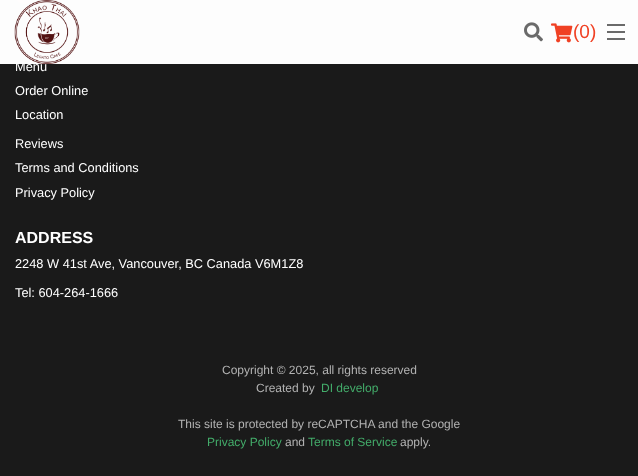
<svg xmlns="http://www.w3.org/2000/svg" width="638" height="476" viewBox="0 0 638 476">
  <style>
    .t1 { font: 12.8px Liberation Sans; fill: #fff; }
    .t2 { font: 19px Liberation Sans; fill: #f04124; }
    .t3 { font: bold 16px Liberation Sans; fill: #fff; }
    .t4 { font: 12px Liberation Sans; fill: #b3b3b3; }
    .t5 { font: 12px Liberation Sans; fill: #43ac6a; }
  </style>
  <rect width="100%" height="100%" fill="#1a1a1a"/>
  <image x="17" y="0" width="16" height="5" href="images/4.png"/>
  <text x="15" y="71" class="t1">Menu</text>
  <rect x="0" y="0" width="638" height="64" fill="#ffffffe6"/>
  <rect x="0" y="0" width="638" height="64" fill="#ffffffe6"/>
  <image x="14" y="0" width="66" height="64" href="images/1.png"/>
  <image x="524" y="22" width="19" height="20" href="images/2.png"/>
  <image x="551" y="23" width="22" height="20" href="images/3.png"/>
  <text x="573" y="38" class="t2">(0)</text>
  <rect x="607" y="38" width="18" height="2" fill="#6a6a6a"/>
  <rect x="607" y="31" width="18" height="2" fill="#6a6a6a"/>
  <rect x="607" y="24" width="18" height="2" fill="#6a6a6a"/>
  <text x="15" y="95" class="t1">Order Online</text>
  <text x="15" y="119" class="t1">Location</text>
  <text x="15" y="148" class="t1">Reviews</text>
  <text x="15" y="172" class="t1">Terms and Conditions</text>
  <text x="15" y="197" class="t1">Privacy Policy</text>
  <text x="15" y="243" class="t3">ADDRESS</text>
  <text x="15" y="268" class="t1">2248 W 41st Ave, Vancouver, BC Canada V6M1Z8</text>
  <text x="15" y="297" class="t1">Tel: 604-264-1666</text>
  <text x="222" y="374" class="t4">Copyright © 2025, all rights reserved</text>
  <text x="256" y="392" class="t4">Created by</text>
  <text x="321" y="392" class="t5">DI develop</text>
  <text x="178" y="428" class="t4">This site is protected by reCAPTCHA and the Google</text>
  <text x="207" y="446" class="t5">Privacy Policy</text>
  <text x="285" y="446" class="t4">and</text>
  <text x="308" y="446" class="t5">Terms of Service</text>
  <text x="400" y="446" class="t4">apply.</text>
</svg>
